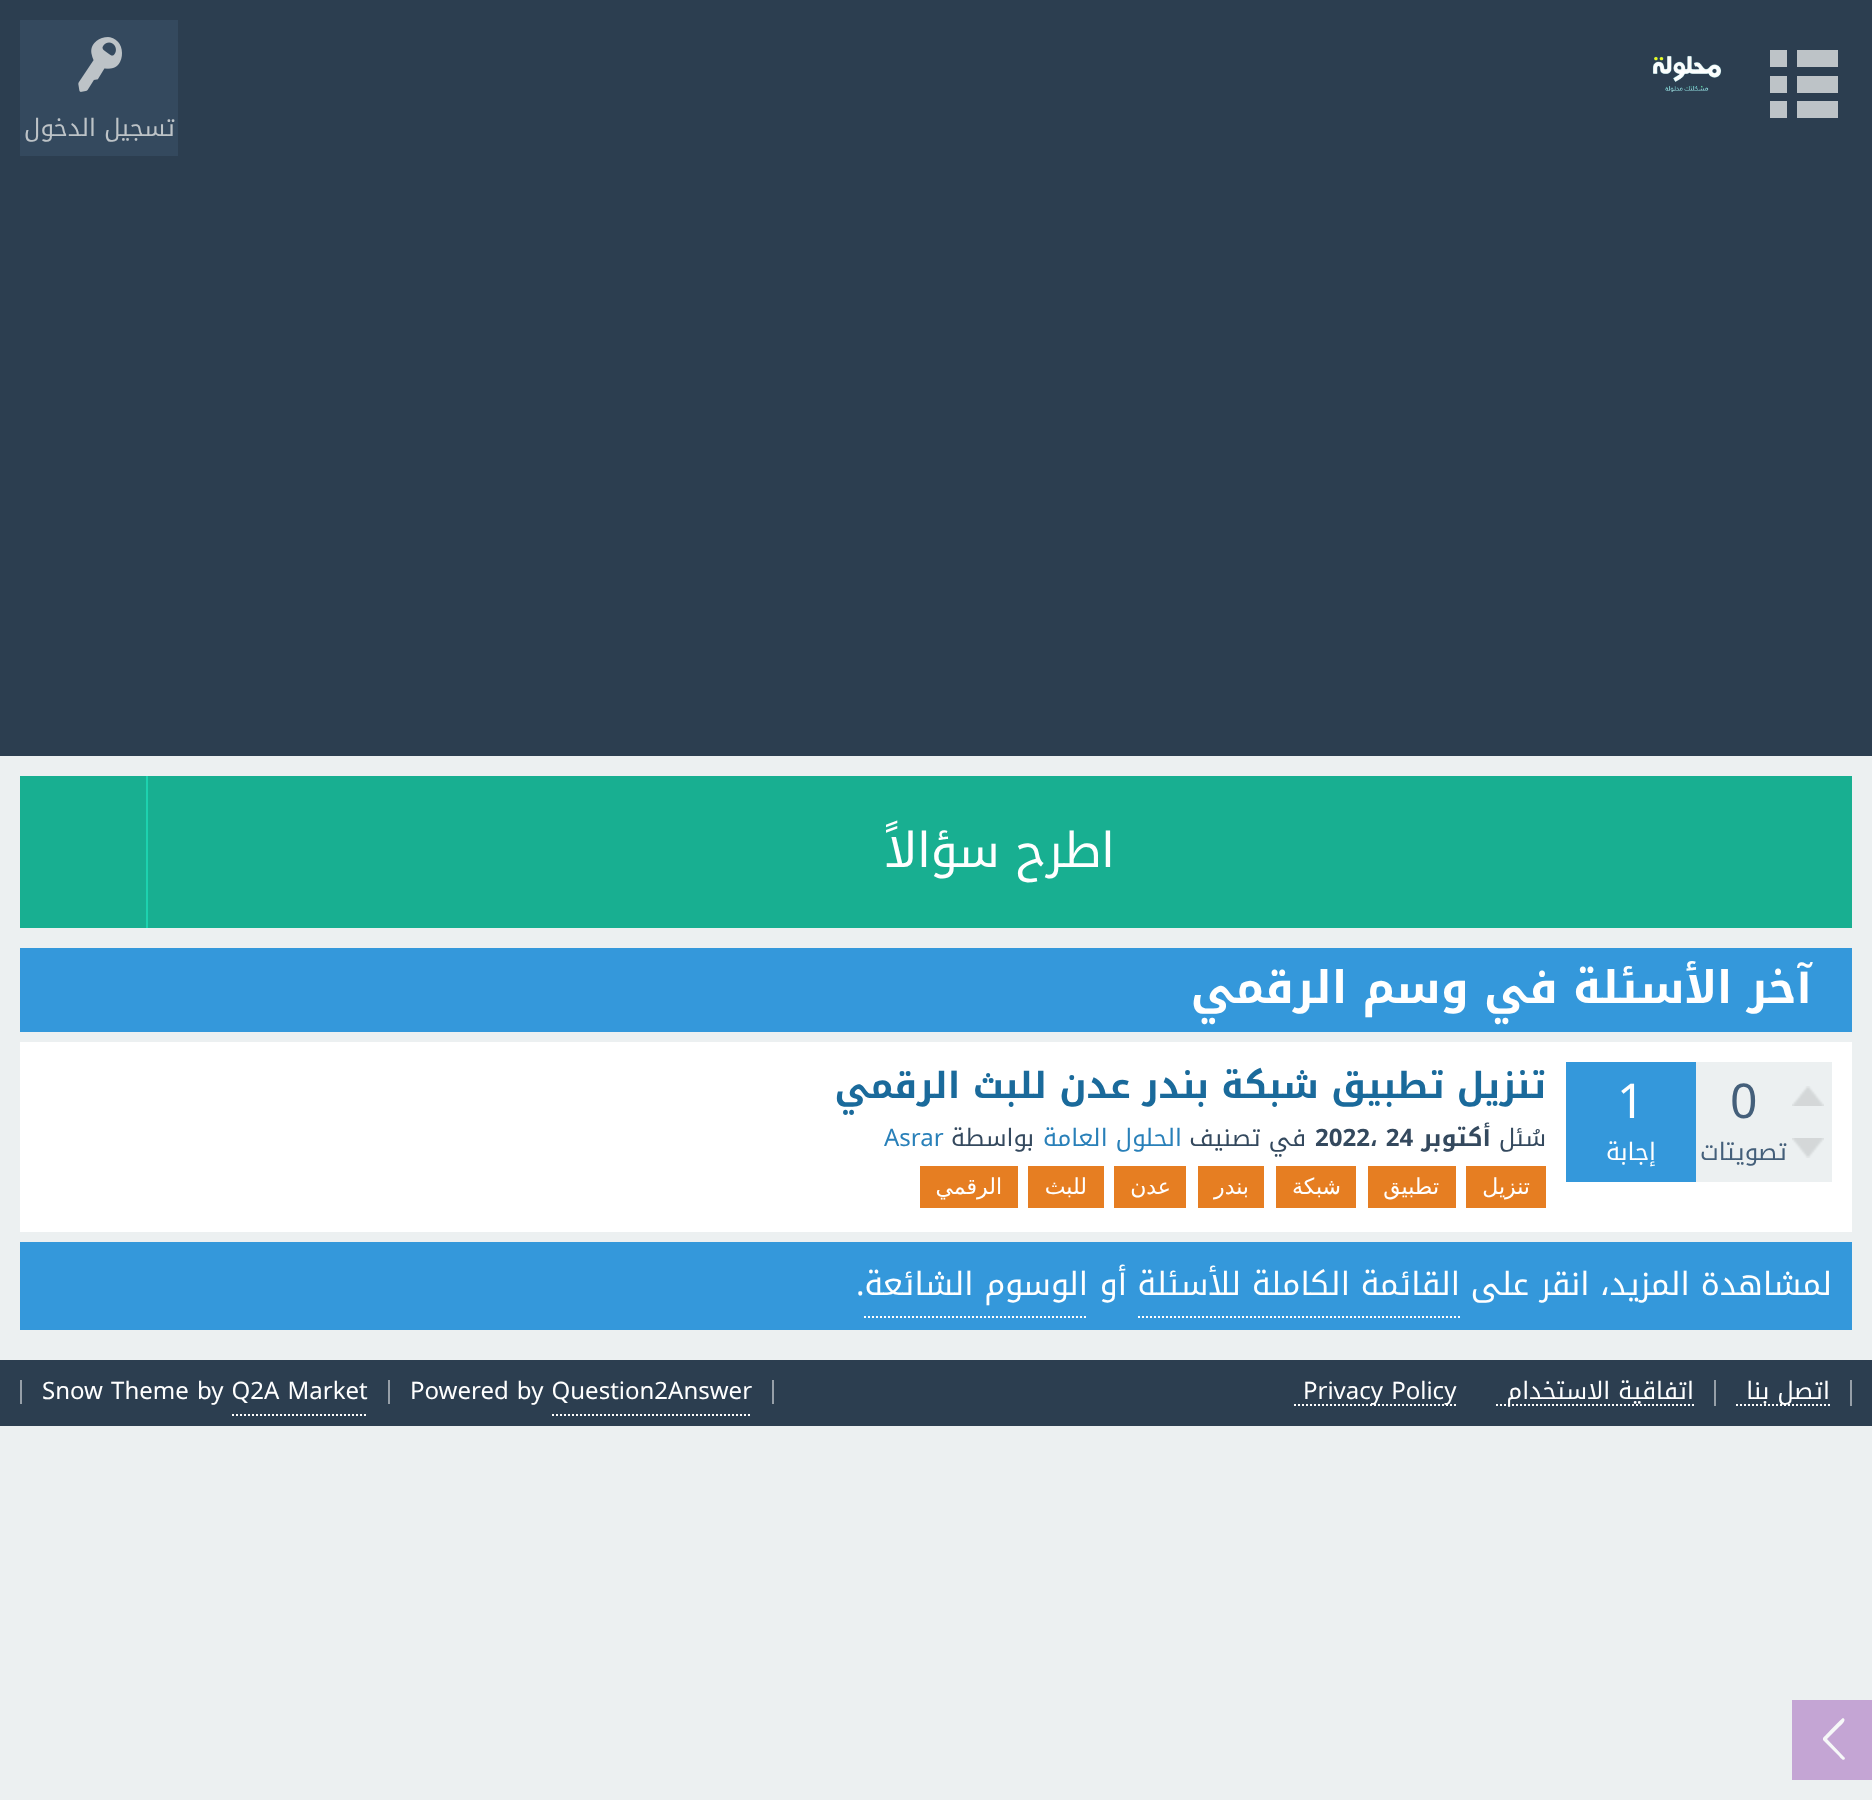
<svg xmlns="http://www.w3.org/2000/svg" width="1872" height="1800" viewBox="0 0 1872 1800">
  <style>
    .t1 { font: 24px Noto Kufi Arabic; direction: rtl; fill: #bdc3c7; }
    .t2 { font: 48px Noto Kufi Arabic; direction: rtl; fill: #fff; }
    .t3 { font: bold 44.75px Noto Kufi Arabic; direction: rtl; fill: #fff; }
    .t4 { font: 48px Noto Kufi Arabic; fill: #445f7a; }
    .t5 { font: 24px Noto Kufi Arabic; direction: rtl; fill: #445f7a; }
    .t6 { font: 48px Noto Kufi Arabic; fill: #fff; }
    .t7 { font: 24px Noto Kufi Arabic; direction: rtl; fill: #fff; }
    .t8 { font: bold 36px Noto Kufi Arabic; direction: rtl; fill: #1a6a9b; }
    .t9 { font: 24px Noto Kufi Arabic; direction: rtl; fill: #34495e; }
    .t10 { font: bold 24px Noto Kufi Arabic; direction: rtl; fill: #34495e; }
    .t11 { font: bold 24px Noto Kufi Arabic; fill: #34495e; }
    .t12 { font: 24px Noto Kufi Arabic; direction: rtl; fill: #2980b9; }
    .t13 { font: 24px Noto Kufi Arabic; fill: #2980b9; }
    .t14 { font: 22px DejaVu Sans; direction: rtl; fill: #fff; }
    .t15 { font: 32px Noto Kufi Arabic; direction: rtl; fill: #fff; }
    .t16 { font: 32px Noto Kufi Arabic; fill: #fff; }
    .t17 { font: 24px Noto Kufi Arabic; fill: #fff; }
  </style>
  <rect width="100%" height="100%" fill="#ecf0f1"/>
  <rect x="0" y="0" width="1872" height="756" fill="#2c3e50"/>
  <path d="M1770 118V101H1787V118ZM1770 93V76H1787V93ZM1770 67V50H1787V67ZM1797 118V101H1838V118ZM1797 93V76H1838V93ZM1797 67V50H1838V67Z" fill="#bdc3c7"/>
  <image x="1652" y="55" width="70" height="37" href="images/1.png"/>
  <rect x="20" y="20" width="158" height="136" fill="#34495e"/>
  <image x="78" y="37" width="44" height="55" href="images/2.png"/>
  <text x="175" y="136" class="t1">تسجيل الدخول</text>
  <rect x="148" y="776" width="1704" height="152" fill="#18af91"/>
  <text x="1115" y="867" class="t2">اطرح سؤالاً</text>
  <rect x="20" y="776" width="126" height="152" fill="#18af91"/>
  <rect x="146" y="776" width="2" height="152" fill="#1dd2af"/>
  <rect x="20" y="948" width="1832" height="84" fill="#3498db"/>
  <text x="1812" y="1003" class="t3">آخر الأسئلة في وسم الرقمي</text>
  <rect x="20" y="1042" width="1832" height="190" fill="#fff"/>
  <rect x="1696" y="1062" width="136" height="120" fill="#ecf0f1"/>
  <image x="1792" y="1086" width="32" height="20" href="images/3.png"/>
  <image x="1792" y="1138" width="32" height="20" href="images/4.png"/>
  <text x="1730" y="1118" class="t4">0</text>
  <text x="1787" y="1160" class="t5">تصويتات</text>
  <rect x="1566" y="1062" width="130" height="120" fill="#3498db"/>
  <text x="1617" y="1118" class="t6">1</text>
  <text x="1656" y="1160" class="t7">إجابة</text>
  <text x="1546" y="1098" class="t8">تنزيل تطبيق شبكة بندر عدن للبث الرقمي</text>
  <text x="1546" y="1146" class="t9">سُئل</text>
  <text x="1491" y="1146" class="t10">أكتوبر</text>
  <text x="1315" y="1146" class="t11">2022، 24</text>
  <text x="1306" y="1146" class="t9">في تصنيف</text>
  <text x="1182" y="1146" class="t12">الحلول العامة</text>
  <text x="1034" y="1146" class="t9">بواسطة</text>
  <text x="884" y="1146" class="t13">Asrar</text>
  <rect x="1466" y="1166" width="80" height="42" fill="#e67e22"/>
  <text x="1530" y="1194" class="t14">تنزيل</text>
  <rect x="1368" y="1166" width="88" height="42" fill="#e67e22"/>
  <text x="1439" y="1194" class="t14">تطبيق</text>
  <rect x="1276" y="1166" width="80" height="42" fill="#e67e22"/>
  <text x="1341" y="1194" class="t14">شبكة</text>
  <rect x="1198" y="1166" width="66" height="42" fill="#e67e22"/>
  <text x="1249" y="1194" class="t14">بندر</text>
  <rect x="1114" y="1166" width="72" height="42" fill="#e67e22"/>
  <text x="1171" y="1194" class="t14">عدن</text>
  <rect x="1028" y="1166" width="76" height="42" fill="#e67e22"/>
  <text x="1087" y="1194" class="t14">للبث</text>
  <rect x="920" y="1166" width="98" height="42" fill="#e67e22"/>
  <text x="1002" y="1194" class="t14">الرقمي</text>
  <rect x="20" y="1242" width="1832" height="88" fill="#3498db"/>
  <text x="1832" y="1295" class="t15">لمشاهدة المزيد، انقر على</text>
  <text x="1460" y="1295" class="t15">القائمة الكاملة للأسئلة</text>
  <path d="M1138 1317H1460" fill="none" stroke="#fff" stroke-width="2" stroke-dasharray="2 2"/>
  <text x="1127" y="1295" class="t15">أو</text>
  <text x="1088" y="1295" class="t15">الوسوم الشائعة</text>
  <path d="M864 1317H1088" fill="none" stroke="#fff" stroke-width="2" stroke-dasharray="2 2"/>
  <text x="856" y="1295" class="t16">.</text>
  <rect x="1792" y="1700" width="80" height="80" fill="#c4a5d4"/>
  <path d="M1844 1757L1845 1758C1844 1763 1839 1756 1839 1756L1823 1740V1738C1825 1736 1842 1718 1843 1718C1848 1720 1839 1727 1839 1727L1827 1739Z" fill="#f6f8f8"/>
  <rect x="0" y="1360" width="1872" height="66" fill="#2c3e50"/>
  <rect x="1850" y="1380" width="2" height="26" fill="#969fa8"/>
  <path d="M1736 1405H1830" fill="none" stroke="#fff" stroke-width="2" stroke-dasharray="2 2"/>
  <text x="1830" y="1399" class="t7">اتصل بنا</text>
  <rect x="1714" y="1380" width="2" height="26" fill="#969fa8"/>
  <path d="M1496 1405H1694" fill="none" stroke="#fff" stroke-width="2" stroke-dasharray="2 2"/>
  <text x="1694" y="1399" class="t7">اتفاقية الاستخدام</text>
  <path d="M1294 1405H1456" fill="none" stroke="#fff" stroke-width="2" stroke-dasharray="2 2"/>
  <text x="1303" y="1399" class="t17">Privacy Policy</text>
  <rect x="772" y="1380" width="2" height="24" fill="#969fa8"/>
  <rect x="388" y="1380" width="2" height="24" fill="#969fa8"/>
  <text x="410" y="1399" class="t17">Powered by Question2Answer</text>
  <path d="M552 1415H752" fill="none" stroke="#fff" stroke-width="2" stroke-dasharray="2 2"/>
  <rect x="20" y="1380" width="2" height="24" fill="#969fa8"/>
  <text x="42" y="1399" class="t17">Snow Theme by Q2A Market</text>
  <path d="M232 1415H368" fill="none" stroke="#fff" stroke-width="2" stroke-dasharray="2 2"/>
</svg>
